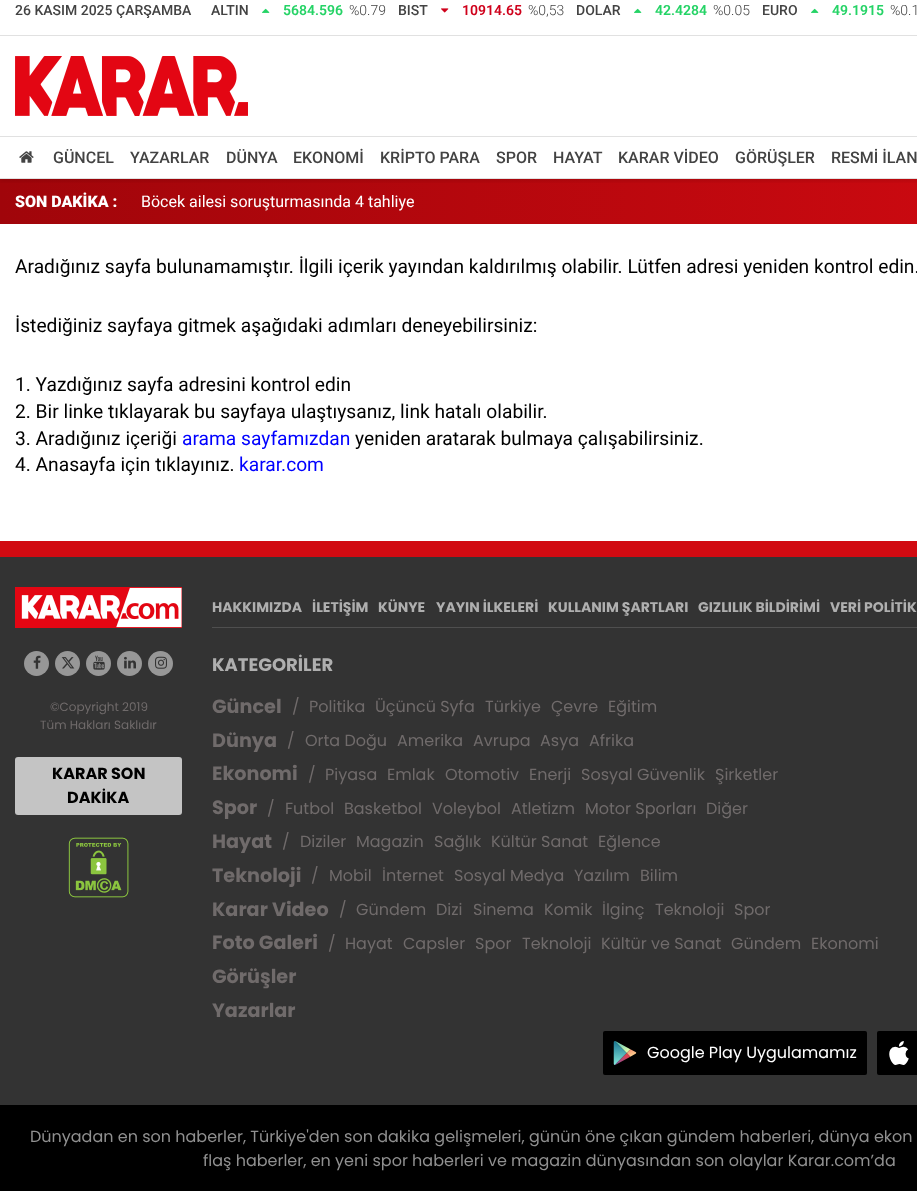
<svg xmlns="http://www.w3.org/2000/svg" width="917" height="1191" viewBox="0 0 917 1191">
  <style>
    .t1 { font: 500 14px Roboto; fill: #434343; }
    .t2 { font: 600 14px Roboto; fill: #25d366; }
    .t3 { font: 300 14px Roboto; fill: #434343; }
    .t4 { font: 600 14px Roboto; fill: #cf011b; }
    .t5 { font: 500 16px Roboto; fill: #434343; }
    .t6 { font: 900 16px Roboto; fill: #fff; }
    .t7 { font: 16px Roboto; fill: #fff; }
    .t8 { font: 19.2px Roboto; fill: #000; }
    .t9 { font: 19.2px Roboto; fill: #00f; }
    .t10 { font: 12px Poppins; fill: #706b6b; }
    .t11 { font: bold 16px Poppins; fill: #000; }
    .t12 { font: bold 14px Poppins; fill: #afafaf; }
    .t13 { font: bold 18px Poppins; fill: #afafaf; }
    .t14 { font: bold 19.2px Poppins; fill: #706b6b; }
    .t15 { font: 16px Poppins; fill: #706b6b; }
    .t16 { font: 16px Poppins; fill: #fff; }
    .t17 { font: 16px Poppins; fill: #909090; }
  </style>
  <defs>
    <linearGradient id="g1" gradientUnits="userSpaceOnUse" x1="0" y1="202" x2="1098" y2="201"><stop offset="0" stop-color="#a0050a"/><stop offset="1" stop-color="#d10a11"/></linearGradient>
    <clipPath id="clip1"><rect x="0" y="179" width="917" height="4"/></clipPath>
  </defs>
  <rect width="100%" height="100%" fill="#fff"/>
  <rect x="0" y="179" width="917" height="45" fill="url(#g1)"/>
  <g clip-path="url(#clip1)">
    <rect x="0" y="-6" width="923" height="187" fill="#0000001a" filter="blur(2px)"/>
  </g>
  <rect x="0" y="35" width="917" height="1" fill="#e1e1e1"/>
  <text x="15" y="15" class="t1">26 KASIM 2025 ÇARŞAMBA</text>
  <text x="211" y="15" class="t1">ALTIN</text>
  <image x="262" y="8" width="8" height="5" href="images/1.png"/>
  <text x="283" y="15" class="t2">5684.596</text>
  <text x="349" y="15" class="t3">%0.79</text>
  <text x="398" y="15" class="t1">BIST</text>
  <image x="441" y="8" width="8" height="5" href="images/2.png"/>
  <text x="462" y="15" class="t4">10914.65</text>
  <text x="528" y="15" class="t3">%0,53</text>
  <text x="576" y="15" class="t1">DOLAR</text>
  <image x="634" y="8" width="8" height="5" href="images/1.png"/>
  <text x="655" y="15" class="t2">42.4284</text>
  <text x="713" y="15" class="t3">%0.05</text>
  <text x="762" y="15" class="t1">EURO</text>
  <image x="811" y="8" width="8" height="5" href="images/1.png"/>
  <text x="832" y="15" class="t2">49.1915</text>
  <text x="890" y="15" class="t3">%0.1</text>
  <image x="15" y="56" width="233" height="60" href="images/3.png"/>
  <rect x="0" y="136" width="917" height="1" fill="#e1e1e1"/>
  <rect x="0" y="178" width="917" height="1" fill="#e1e1e1"/>
  <image x="19" y="151" width="15" height="12" href="images/4.png"/>
  <text x="53" y="163" class="t5">GÜNCEL</text>
  <text x="130" y="163" class="t5">YAZARLAR</text>
  <text x="226" y="163" class="t5">DÜNYA</text>
  <text x="293" y="163" class="t5">EKONOMİ</text>
  <text x="380" y="163" class="t5">KRİPTO PARA</text>
  <text x="496" y="163" class="t5">SPOR</text>
  <text x="553" y="163" class="t5">HAYAT</text>
  <text x="618" y="163" class="t5">KARAR VİDEO</text>
  <text x="735" y="163" class="t5">GÖRÜŞLER</text>
  <text x="831" y="163" class="t5">RESMİ İLAN</text>
  <text x="15" y="207" class="t6">SON DAKİKA :</text>
  <text x="141" y="207" class="t7">Böcek ailesi soruşturmasında 4 tahliye</text>
  <text x="15" y="273" class="t8">Aradığınız sayfa bulunamamıştır. İlgili içerik yayından kaldırılmış olabilir. Lütfen adresi yeniden kontrol edin.</text>
  <text x="15" y="332" class="t8">İstediğiniz sayfaya gitmek aşağıdaki adımları deneyebilirsiniz:</text>
  <text x="15" y="391" class="t8">1. Yazdığınız sayfa adresini kontrol edin</text>
  <text x="15" y="418" class="t8">2. Bir linke tıklayarak bu sayfaya ulaştıysanız, link hatalı olabilir.</text>
  <text x="15" y="445" class="t8">3. Aradığınız içeriği</text>
  <text x="182" y="445" class="t9">arama sayfamızdan</text>
  <text x="355" y="445" class="t8">yeniden aratarak bulmaya çalışabilirsiniz.</text>
  <text x="15" y="471" class="t8">4. Anasayfa için tıklayınız.</text>
  <text x="239" y="471" class="t9">karar.com</text>
  <rect x="0" y="557" width="917" height="548" fill="#333"/>
  <rect x="0" y="541" width="917" height="16" fill="#d10a11"/>
  <image x="15" y="587" width="167" height="41" href="images/5.png"/>
  <circle cx="36.5" cy="663.5" r="12.5" fill="#979797"/>
  <image x="33" y="655" width="8" height="14" href="images/6.png"/>
  <circle cx="67.5" cy="663.5" r="12.5" fill="#979797"/>
  <image x="61" y="657" width="14" height="12" href="images/7.png"/>
  <circle cx="98.5" cy="663.5" r="12.5" fill="#979797"/>
  <image x="93" y="655" width="12" height="15" href="images/8.png"/>
  <circle cx="129.5" cy="663.5" r="12.5" fill="#979797"/>
  <image x="124" y="656" width="12" height="13" href="images/9.png"/>
  <circle cx="160.5" cy="663.5" r="12.5" fill="#979797"/>
  <image x="155" y="656" width="12" height="13" href="images/10.png"/>
  <text x="50" y="711" class="t10">©Copyright 2019</text>
  <text x="40" y="729" class="t10">Tüm Hakları Saklıdır</text>
  <rect x="15" y="757" width="167" height="58" rx="3" fill="#c4c4c4"/>
  <text x="52" y="779" class="t11">KARAR SON</text>
  <text x="67" y="803" class="t11">DAKİKA</text>
  <image x="68" y="837" width="61" height="61" href="images/11.png"/>
  <rect x="212" y="627" width="705" height="1" fill="#4f4f4f"/>
  <text x="212" y="612" class="t12">HAKKIMIZDA</text>
  <text x="312" y="612" class="t12">İLETİŞİM</text>
  <text x="378" y="612" class="t12">KÜNYE</text>
  <text x="436" y="612" class="t12">YAYIN İLKELERİ</text>
  <text x="548" y="612" class="t12">KULLANIM ŞARTLARI</text>
  <text x="698" y="612" class="t12">GIZLILIK BİLDİRİMİ</text>
  <text x="830" y="612" class="t12">VERİ POLİTİK</text>
  <text x="212" y="671" class="t13">KATEGORİLER</text>
  <text x="212" y="713" class="t14">Güncel</text>
  <text x="292" y="712" class="t15">/</text>
  <text x="309" y="712" class="t15">Politika</text>
  <text x="375" y="712" class="t15">Üçüncü Syfa</text>
  <text x="485" y="712" class="t15">Türkiye</text>
  <text x="551" y="712" class="t15">Çevre</text>
  <text x="608" y="712" class="t15">Eğitim</text>
  <text x="212" y="747" class="t14">Dünya</text>
  <text x="287" y="746" class="t15">/</text>
  <text x="305" y="746" class="t15">Orta Doğu</text>
  <text x="397" y="746" class="t15">Amerika</text>
  <text x="473" y="746" class="t15">Avrupa</text>
  <text x="540" y="746" class="t15">Asya</text>
  <text x="589" y="746" class="t15">Afrika</text>
  <text x="212" y="780" class="t14">Ekonomi</text>
  <text x="308" y="780" class="t15">/</text>
  <text x="325" y="780" class="t15">Piyasa</text>
  <text x="387" y="780" class="t15">Emlak</text>
  <text x="445" y="780" class="t15">Otomotiv</text>
  <text x="529" y="780" class="t15">Enerji</text>
  <text x="581" y="780" class="t15">Sosyal Güvenlik</text>
  <text x="715" y="780" class="t15">Şirketler</text>
  <text x="212" y="814" class="t14">Spor</text>
  <text x="267" y="814" class="t15">/</text>
  <text x="285" y="814" class="t15">Futbol</text>
  <text x="344" y="814" class="t15">Basketbol</text>
  <text x="432" y="814" class="t15">Voleybol</text>
  <text x="511" y="814" class="t15">Atletizm</text>
  <text x="585" y="814" class="t15">Motor Sporları</text>
  <text x="706" y="814" class="t15">Diğer</text>
  <text x="212" y="848" class="t14">Hayat</text>
  <text x="282" y="847" class="t15">/</text>
  <text x="300" y="847" class="t15">Diziler</text>
  <text x="356" y="847" class="t15">Magazin</text>
  <text x="434" y="847" class="t15">Sağlık</text>
  <text x="491" y="847" class="t15">Kültür Sanat</text>
  <text x="598" y="847" class="t15">Eğlence</text>
  <text x="212" y="882" class="t14">Teknoloji</text>
  <text x="311" y="881" class="t15">/</text>
  <text x="329" y="881" class="t15">Mobil</text>
  <text x="382" y="881" class="t15">İnternet</text>
  <text x="454" y="881" class="t15">Sosyal Medya</text>
  <text x="574" y="881" class="t15">Yazılım</text>
  <text x="640" y="881" class="t15">Bilim</text>
  <text x="212" y="916" class="t14">Karar Video</text>
  <text x="339" y="915" class="t15">/</text>
  <text x="356" y="915" class="t15">Gündem</text>
  <text x="436" y="915" class="t15">Dizi</text>
  <text x="473" y="915" class="t15">Sinema</text>
  <text x="544" y="915" class="t15">Komik</text>
  <text x="602" y="915" class="t15">İlginç</text>
  <text x="655" y="915" class="t15">Teknoloji</text>
  <text x="734" y="915" class="t15">Spor</text>
  <text x="212" y="949" class="t14">Foto Galeri</text>
  <text x="328" y="949" class="t15">/</text>
  <text x="345" y="949" class="t15">Hayat</text>
  <text x="403" y="949" class="t15">Capsler</text>
  <text x="475" y="949" class="t15">Spor</text>
  <text x="522" y="949" class="t15">Teknoloji</text>
  <text x="601" y="949" class="t15">Kültür ve Sanat</text>
  <text x="731" y="949" class="t15">Gündem</text>
  <text x="811" y="949" class="t15">Ekonomi</text>
  <text x="212" y="983" class="t14">Görüşler</text>
  <text x="212" y="1017" class="t14">Yazarlar</text>
  <rect x="603" y="1031" width="264" height="44" rx="2" fill="#000"/>
  <image x="613" y="1041" width="24" height="24" href="images/12.png"/>
  <text x="647" y="1058" class="t16">Google Play Uygulamamız</text>
  <rect x="877" y="1031" width="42" height="44" rx="2" fill="#000"/>
  <image x="889" y="1041" width="20" height="24" href="images/13.png"/>
  <rect x="0" y="1105" width="917" height="86" fill="#000"/>
  <text x="30" y="1142" class="t17">Dünyadan en son haberler, Türkiye'den son dakika gelişmeleri, günün öne çıkan gündem haberleri, dünya ekon</text>
  <text x="203" y="1166" class="t17">flaş haberler, en yeni spor haberleri ve magazin dünyasından son olaylar Karar.com’da</text>
</svg>
